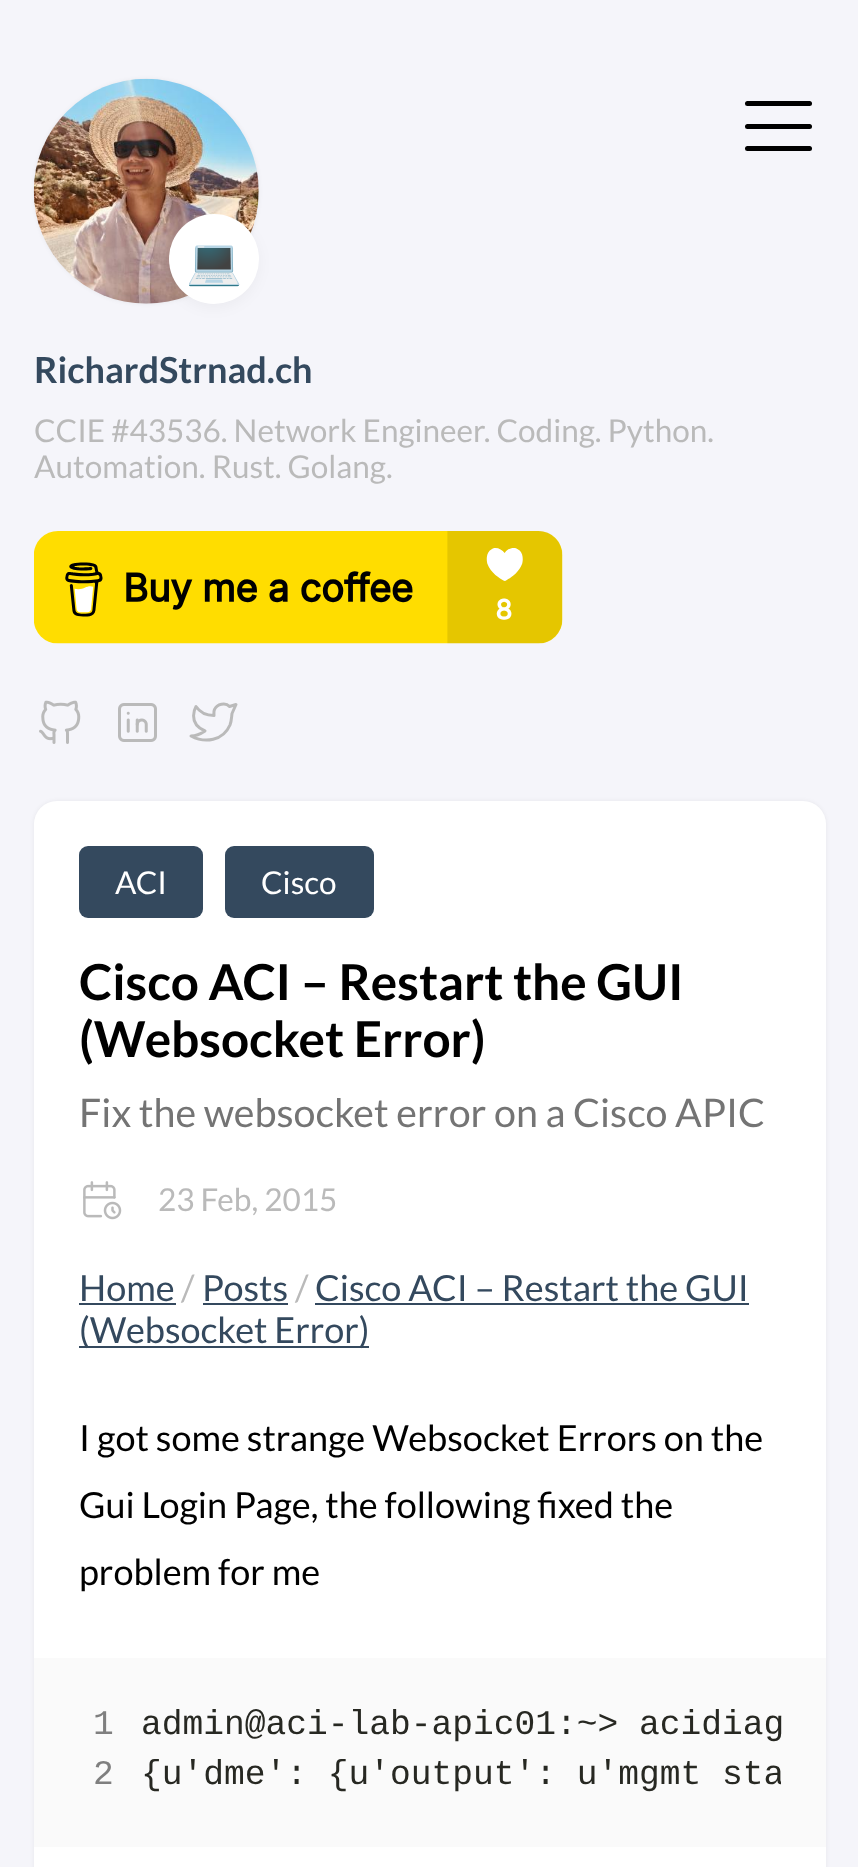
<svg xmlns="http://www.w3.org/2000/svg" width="858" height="1867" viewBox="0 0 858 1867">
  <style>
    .t1 { font: 45px Noto Color Emoji; fill: #000; }
    .t2 { font: bold 36px Lato; fill: #34495e; }
    .t3 { font: 31.5px Lato; fill: #bababa; }
    .t4 { font: 31.5px Lato; fill: #fff; }
    .t5 { font: bold 49.5px Lato; fill: #000; }
    .t6 { font: 39.4px Lato; fill: #747474; }
    .t7 { font: 36px Lato; fill: #34495e; }
    .t8 { font: 36px Lato; fill: #bababa; }
    .t9 { font: 36px Lato; fill: #000; }
    .t10 { font: 34.6px Liberation Mono; fill: #7f7f7f; }
    .t11 { font: 34.6px Liberation Mono; fill: #272822; }
  </style>
  <defs>
    <clipPath id="clip1"><rect x="142" y="1703" width="639" height="99"/></clipPath>
  </defs>
  <rect width="100%" height="100%" fill="#f5f5fa"/>
  <rect x="745" y="124" width="67" height="5" rx="2.5" fill="#000"/>
  <rect x="745" y="101" width="67" height="5" rx="2.5" fill="#000"/>
  <rect x="745" y="146" width="67" height="5" rx="2.5" fill="#000"/>
  <rect x="34" y="79" width="225" height="225" rx="112.5" fill="#0000000f" filter="blur(2px)"/>
  <image x="33" y="78" width="226" height="226" href="images/1.png"/>
  <rect x="169" y="218" width="90" height="90" rx="45" fill="#0000000a" filter="blur(7px)"/>
  <circle cx="214" cy="259" r="45" fill="#fff"/>
  <text x="186" y="277" class="t1">💻</text>
  <text x="34" y="383" class="t2">RichardStrnad.ch</text>
  <text x="34" y="442" class="t3">CCIE #43536. Network Engineer. Coding. Python.</text>
  <text x="34" y="478" class="t3">Automation. Rust. Golang.</text>
  <image x="34" y="531" width="529" height="113" href="images/2.png"/>
  <image x="39" y="700" width="42" height="44" href="images/3.png"/>
  <image x="118" y="703" width="39" height="39" href="images/4.png"/>
  <path d="M236 704.5L229.5 706.5C225.5 702 217 704 214.5 709.5C213.5 711.5 214 713.5 214 715.5C206.5 715.5 200 712.5 196 706.5C196 706.5 186.5 723 205 731C200.5 734 196.5 736 191 736C205 743.5 223 741 230 725C231.5 721 231.5 717.5 232 713.5Z" fill="none" stroke="#bababa" stroke-width="3" stroke-linecap="round" stroke-linejoin="round"/>
  <rect x="34" y="801" width="792" height="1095" rx="23" fill="#0000000f" filter="blur(2px)"/>
  <rect x="34" y="801" width="792" height="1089" rx="23" fill="#fff"/>
  <rect x="79" y="846" width="124" height="72" rx="9" fill="#34495e"/>
  <text x="115" y="894" class="t4">ACI</text>
  <rect x="225" y="846" width="149" height="72" rx="9" fill="#34495e"/>
  <text x="261" y="894" class="t4">Cisco</text>
  <text x="79" y="1000" class="t5">Cisco ACI – Restart the GUI</text>
  <text x="79" y="1057" class="t5">(Websocket Error)</text>
  <text x="79" y="1127" class="t6">Fix the websocket error on a Cisco APIC</text>
  <image x="83" y="1181" width="39" height="39" href="images/5.png"/>
  <text x="158" y="1211" class="t3">23 Feb, 2015</text>
  <text x="79" y="1301" class="t7">Home</text>
  <rect x="79" y="1303" width="97" height="2" fill="#34495e"/>
  <text x="181" y="1301" class="t8">/</text>
  <text x="202" y="1301" class="t7">Posts</text>
  <rect x="203" y="1303" width="85" height="2" fill="#34495e"/>
  <text x="295" y="1301" class="t8">/</text>
  <text x="315" y="1301" class="t7">Cisco ACI – Restart the GUI</text>
  <rect x="315" y="1303" width="434" height="2" fill="#34495e"/>
  <rect x="79" y="1346" width="290" height="2" fill="#34495e"/>
  <text x="79" y="1343" class="t7">(Websocket Error)</text>
  <text x="79" y="1451" class="t9">I got some strange Websocket Errors on the</text>
  <text x="79" y="1518" class="t9">Gui Login Page, the following fixed the</text>
  <text x="79" y="1585" class="t9">problem for me</text>
  <rect x="34" y="1658" width="792" height="189" fill="#fafafa"/>
  <text x="93" y="1734" class="t10">1</text>
  <text x="93" y="1784" class="t10">2</text>
  <text x="141" y="1734" class="t11">admin@aci-lab-apic01:~&gt; acidiag</text>
  <g clip-path="url(#clip1)">
    <text x="141" y="1784" class="t11">{u'dme': {u'output': u'mgmt sta</text>
  </g>
</svg>
